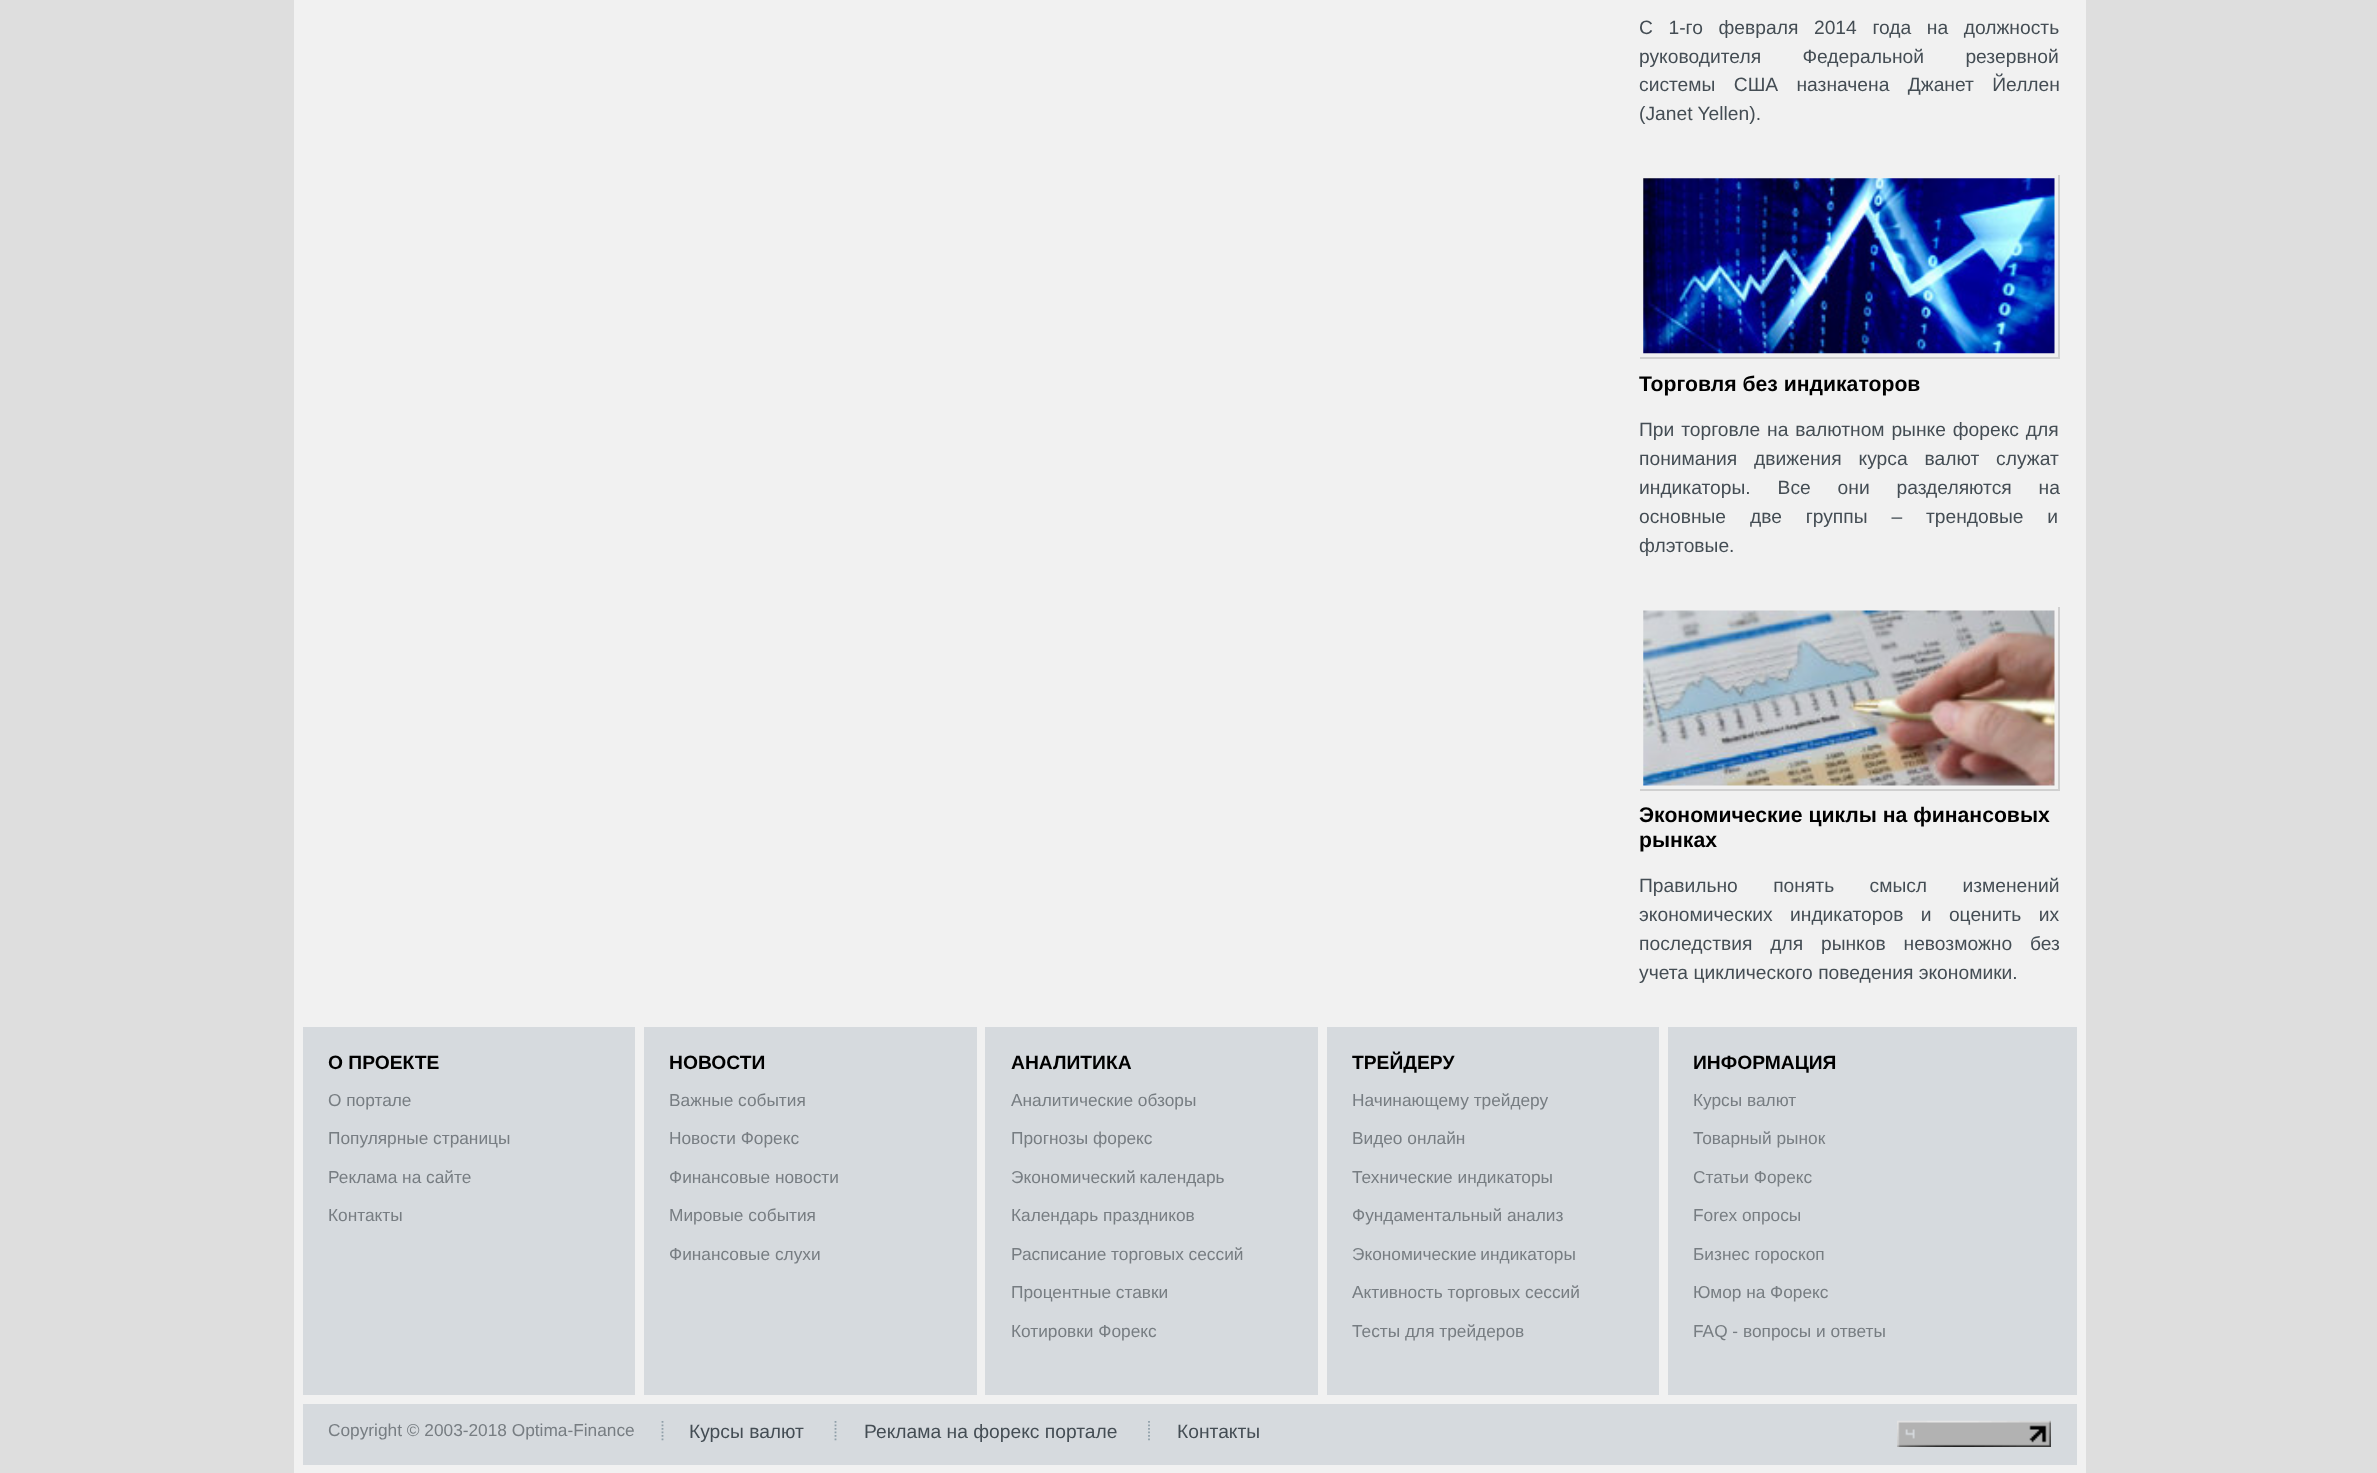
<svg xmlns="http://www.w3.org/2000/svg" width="2377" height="1473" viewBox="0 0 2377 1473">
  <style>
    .t1 { font: 19.25px Liberation Sans; fill: #444d54; }
    .t2 { font: bold 21.2px Liberation Sans; fill: #000; }
    .t3 { font: bold 19.25px Liberation Sans; fill: #000; }
    .t4 { font: 17.3px Liberation Sans; fill: #777d82; }
  </style>
  <rect width="100%" height="100%" fill="#dedede"/>
  <rect x="294" y="0" width="1792" height="1473" fill="#f1f1f1"/>
  <text x="1639" y="34" word-spacing="10.25" class="t1">С 1-го февраля 2014 года на должность</text>
  <text x="1639" y="63" word-spacing="36" class="t1">руководителя Федеральной резервной</text>
  <text x="1639" y="91" word-spacing="13" class="t1">системы США назначена Джанет Йеллен</text>
  <text x="1639" y="120" class="t1">(Janet Yellen).</text>
  <image x="1643" y="178" width="412" height="176" href="images/1.png"/>
  <rect x="2058" y="175" width="2" height="184" fill="#d0d0d0"/>
  <rect x="1640" y="357" width="420" height="2" fill="#d0d0d0"/>
  <text x="1639" y="391" class="t2">Торговля без индикаторов</text>
  <text x="1639" y="436" word-spacing="1.5" class="t1">При торговле на валютном рынке форекс для</text>
  <text x="1639" y="465" word-spacing="11.5" class="t1">понимания движения курса валют служат</text>
  <text x="1639" y="494" word-spacing="21.5" class="t1">индикаторы. Все они разделяются на</text>
  <text x="1639" y="523" word-spacing="18.5" class="t1">основные две группы – трендовые и</text>
  <text x="1639" y="552" class="t1">флэтовые.</text>
  <image x="1643" y="610" width="412" height="176" href="images/2.png"/>
  <rect x="2058" y="607" width="2" height="184" fill="#d0d0d0"/>
  <rect x="1640" y="789" width="420" height="2" fill="#d0d0d0"/>
  <text x="1639" y="822" class="t2">Экономические циклы на финансовых</text>
  <text x="1639" y="847" class="t2">рынках</text>
  <text x="1639" y="892" word-spacing="30" class="t1">Правильно понять смысл изменений</text>
  <text x="1639" y="921" word-spacing="12" class="t1">экономических индикаторов и оценить их</text>
  <text x="1639" y="950" word-spacing="12.5" class="t1">последствия для рынков невозможно без</text>
  <text x="1639" y="979" class="t1">учета циклического поведения экономики.</text>
  <rect x="303" y="1027" width="1774" height="438" fill="#d6dade"/>
  <rect x="303" y="1395" width="1774" height="9" fill="#f1f1f1"/>
  <text x="328" y="1069" class="t3">О ПРОЕКТЕ</text>
  <text x="328" y="1106" class="t4">О портале</text>
  <text x="328" y="1144" class="t4">Популярные страницы</text>
  <text x="328" y="1183" class="t4">Реклама на сайте</text>
  <text x="328" y="1221" class="t4">Контакты</text>
  <rect x="635" y="1027" width="9" height="368" fill="#f1f1f1"/>
  <text x="669" y="1069" class="t3">НОВОСТИ</text>
  <text x="669" y="1106" class="t4">Важные события</text>
  <text x="669" y="1144" class="t4">Новости Форекс</text>
  <text x="669" y="1183" class="t4">Финансовые новости</text>
  <text x="669" y="1221" class="t4">Мировые события</text>
  <text x="669" y="1260" class="t4">Финансовые слухи</text>
  <rect x="977" y="1027" width="8" height="368" fill="#f1f1f1"/>
  <text x="1011" y="1069" class="t3">АНАЛИТИКА</text>
  <text x="1011" y="1106" class="t4">Аналитические обзоры</text>
  <text x="1011" y="1144" class="t4">Прогнозы форекс</text>
  <text x="1011" y="1183" word-spacing="-1" class="t4">Экономический календарь</text>
  <text x="1011" y="1221" class="t4">Календарь праздников</text>
  <text x="1011" y="1260" class="t4">Расписание торговых сессий</text>
  <text x="1011" y="1298" class="t4">Процентные ставки</text>
  <text x="1011" y="1337" class="t4">Котировки Форекс</text>
  <rect x="1318" y="1027" width="9" height="368" fill="#f1f1f1"/>
  <text x="1352" y="1069" class="t3">ТРЕЙДЕРУ</text>
  <text x="1352" y="1106" class="t4">Начинающему трейдеру</text>
  <text x="1352" y="1144" class="t4">Видео онлайн</text>
  <text x="1352" y="1183" class="t4">Технические индикаторы</text>
  <text x="1352" y="1221" class="t4">Фундаментальный анализ</text>
  <text x="1352" y="1260" word-spacing="-1" class="t4">Экономические индикаторы</text>
  <text x="1352" y="1298" class="t4">Активность торговых сессий</text>
  <text x="1352" y="1337" class="t4">Тесты для трейдеров</text>
  <rect x="1659" y="1027" width="9" height="368" fill="#f1f1f1"/>
  <text x="1693" y="1069" class="t3">ИНФОРМАЦИЯ</text>
  <text x="1693" y="1106" class="t4">Курсы валют</text>
  <text x="1693" y="1144" class="t4">Товарный рынок</text>
  <text x="1693" y="1183" class="t4">Статьи Форекс</text>
  <text x="1693" y="1221" class="t4">Forex опросы</text>
  <text x="1693" y="1260" class="t4">Бизнес гороскоп</text>
  <text x="1693" y="1298" class="t4">Юмор на Форекс</text>
  <text x="1693" y="1337" class="t4">FAQ - вопросы и ответы</text>
  <text x="328" y="1436" class="t4">Copyright © 2003-2018 Optima-Finance</text>
  <text x="689" y="1438" class="t1">Курсы валют</text>
  <path d="M662.5 1421V1442" fill="none" stroke="#909fa9" stroke-width="1.8" stroke-dasharray="1.75 1.75"/>
  <text x="864" y="1438" class="t1">Реклама на форекс портале</text>
  <path d="M835.5 1421V1442" fill="none" stroke="#909fa9" stroke-width="1.8" stroke-dasharray="1.75 1.75"/>
  <text x="1177" y="1438" class="t1">Контакты</text>
  <path d="M1149 1421V1442" fill="none" stroke="#909fa9" stroke-width="1.8" stroke-dasharray="1.75 1.75"/>
  <image x="1897" y="1420" width="154" height="27" href="images/3.png"/>
</svg>
